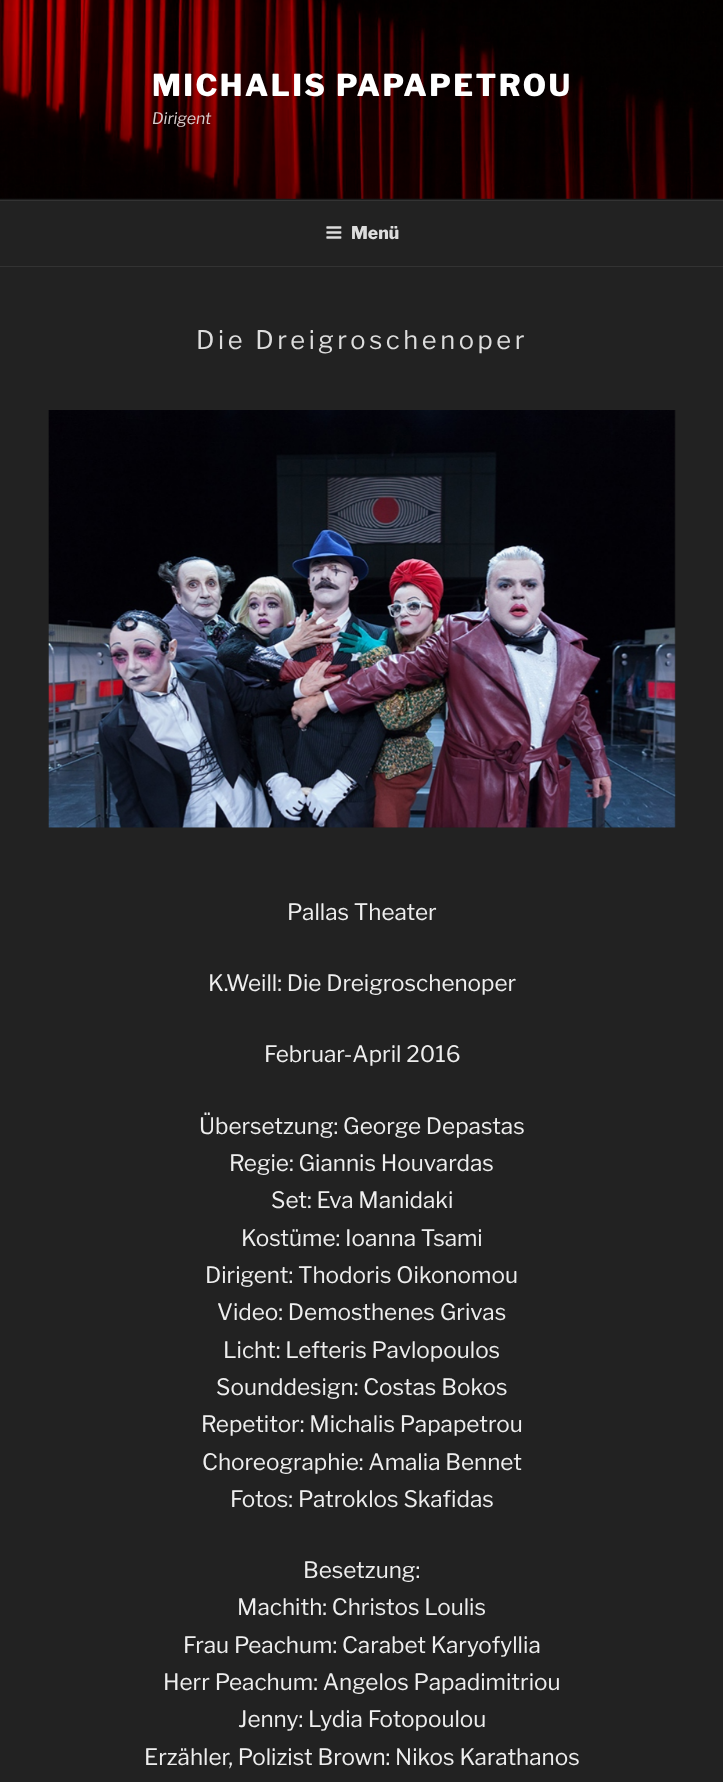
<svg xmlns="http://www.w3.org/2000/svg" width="723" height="1782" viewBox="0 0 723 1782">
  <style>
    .t1 { font: 800 30px Libre Franklin; letter-spacing: 2.4px; fill: #fff; }
    .t2 { font: italic 16px Libre Franklin; fill: #d8cccc; }
    .t3 { font: 800 17.5px Libre Franklin; fill: #ddd; }
    .t4 { font: 25.5px Libre Franklin; letter-spacing: 3.6px; fill: #ddd; }
    .t5 { font: 22.5px Libre Franklin; fill: #eee; }
  </style>
  <defs>
    <linearGradient id="g1" gradientUnits="userSpaceOnUse" x1="362" y1="0" x2="362" y2="200"><stop offset="0" stop-color="#000" stop-opacity="0"/><stop offset="0.75" stop-color="#000" stop-opacity="0.3"/><stop offset="1" stop-color="#000" stop-opacity="0.3"/></linearGradient>
  </defs>
  <rect width="100%" height="100%" fill="#222"/>
  <rect x="0" y="198" width="723" height="2" fill="#262626"/>
  <image x="0" y="0" width="723" height="199" href="images/1.png"/>
  <rect x="0" y="11" width="723" height="189" fill="url(#g1)"/>
  <text x="152" y="96" class="t1">MICHALIS PAPAPETROU</text>
  <text x="152" y="124" class="t2">Dirigent</text>
  <rect x="0" y="200" width="723" height="1" fill="#333"/>
  <rect x="0" y="266" width="723" height="1" fill="#333"/>
  <image x="326" y="226" width="16" height="13" href="images/2.png"/>
  <text x="351" y="239" class="t3">Menü</text>
  <text x="196" y="349" class="t4">Die Dreigroschenoper</text>
  <image x="48" y="410" width="628" height="418" href="images/3.png"/>
  <text x="287" y="920" class="t5">Pallas Theater</text>
  <text x="208" y="991" class="t5">K.Weill: Die Dreigroschenoper</text>
  <text x="264" y="1062" class="t5">Februar-April 2016</text>
  <text x="199" y="1134" class="t5">Übersetzung: George Depastas</text>
  <text x="229" y="1171" class="t5">Regie: Giannis Houvardas</text>
  <text x="271" y="1208" class="t5">Set: Eva Manidaki</text>
  <text x="241" y="1246" class="t5">Kostüme: Ioanna Tsami</text>
  <text x="205" y="1283" class="t5">Dirigent: Thodoris Oikonomou</text>
  <text x="217" y="1320" class="t5">Video: Demosthenes Grivas</text>
  <text x="223" y="1358" class="t5">Licht: Lefteris Pavlopoulos</text>
  <text x="216" y="1395" class="t5">Sounddesign: Costas Bokos</text>
  <text x="201" y="1432" class="t5">Repetitor: Michalis Papapetrou</text>
  <text x="202" y="1470" class="t5">Choreographie: Amalia Bennet</text>
  <text x="230" y="1507" class="t5">Fotos: Patroklos Skafidas</text>
  <text x="303" y="1578" class="t5">Besetzung:</text>
  <text x="237" y="1615" class="t5">Machith: Christos Loulis</text>
  <text x="183" y="1653" class="t5">Frau Peachum: Carabet Karyofyllia</text>
  <text x="163" y="1690" class="t5">Herr Peachum: Angelos Papadimitriou</text>
  <text x="238" y="1727" class="t5">Jenny: Lydia Fotopoulou</text>
  <text x="144" y="1765" class="t5">Erzähler, Polizist Brown: Nikos Karathanos</text>
</svg>
